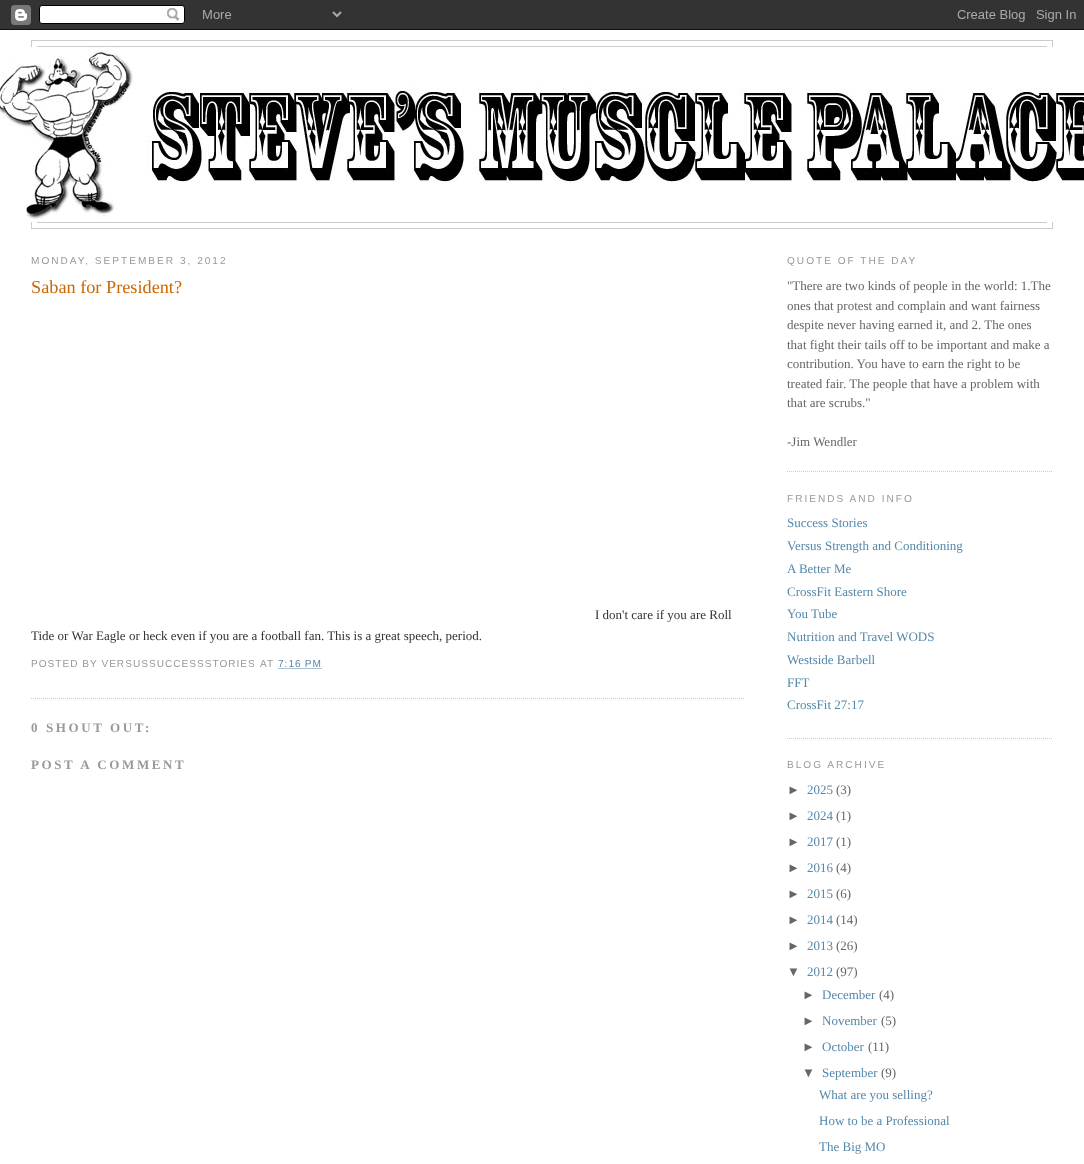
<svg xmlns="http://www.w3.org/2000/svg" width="1084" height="1164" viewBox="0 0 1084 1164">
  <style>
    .t1 { font: 10.1px Liberation Sans; letter-spacing: 2px; fill: #999; }
    .t2 { font: 18.25px Liberation Serif; fill: #c60; }
    .t3 { font: 13px Liberation Serif; fill: #333; }
    .t4 { font: 10.1px Liberation Sans; letter-spacing: 1px; fill: #999; }
    .t5 { font: 10.1px Liberation Sans; letter-spacing: 1px; fill: #58a; }
    .t6 { font: bold 13px Liberation Serif; letter-spacing: 2.6px; fill: #999; }
    .t7 { font: 13px Liberation Serif; fill: #666; }
    .t8 { font: 13px Liberation Serif; fill: #58a; }
    .t9 { font: 13px Liberation Sans; fill: #666; }
  </style>
  <rect width="100%" height="100%" fill="#fff"/>
  <image x="0" y="0" width="1084" height="30" href="images/1.png"/>
  <rect x="31.5" y="40.5" width="1021" height="188" fill="none" stroke="#ccc"/>
  <rect x="37.5" y="46.5" width="1009" height="176" fill="none" stroke="#ccc"/>
  <image x="0" y="47" width="1084" height="175" href="images/2.png"/>
  <text x="31" y="264" class="t1">MONDAY, SEPTEMBER 3, 2012</text>
  <path d="M31 698.5H744" fill="none" stroke="#ccc" stroke-dasharray="1 1"/>
  <text x="31" y="293" class="t2">Saban for President?</text>
  <text x="595" y="619" class="t3">I don't care if you are Roll</text>
  <text x="31" y="640" class="t3">Tide or War Eagle or heck even if you are a football fan. This is a great speech, period.</text>
  <text x="31" y="667" class="t4">POSTED BY VERSUSSUCCESSSTORIES</text>
  <text x="260" y="667" class="t4">AT</text>
  <text x="278" y="667" class="t5">7:16 PM</text>
  <path d="M278.5 668.5H322.5" fill="none" stroke="#58a" stroke-dasharray="1 1"/>
  <text x="31" y="732" class="t6">0 SHOUT OUT:</text>
  <text x="31" y="769" class="t6">POST A COMMENT</text>
  <path d="M787 471.5H1053" fill="none" stroke="#ccc" stroke-dasharray="1 1"/>
  <text x="787" y="264" class="t1">QUOTE OF THE DAY</text>
  <text x="787" y="290" class="t7">"There are two kinds of people in the world: 1.The</text>
  <text x="787" y="310" class="t7">ones that protest and complain and want fairness</text>
  <text x="787" y="329" class="t7">despite never having earned it, and 2. The ones</text>
  <text x="787" y="349" class="t7">that fight their tails off to be important and make a</text>
  <text x="787" y="368" class="t7">contribution. You have to earn the right to be</text>
  <text x="787" y="388" class="t7">treated fair. The people that have a problem with</text>
  <text x="787" y="407" class="t7">that are scrubs."</text>
  <text x="787" y="446" class="t7">-Jim Wendler</text>
  <path d="M787 738.5H1053" fill="none" stroke="#ccc" stroke-dasharray="1 1"/>
  <text x="787" y="502" class="t1">FRIENDS AND INFO</text>
  <text x="787" y="527" class="t8">Success Stories</text>
  <text x="787" y="550" class="t8">Versus Strength and Conditioning</text>
  <text x="787" y="573" class="t8">A Better Me</text>
  <text x="787" y="596" class="t8">CrossFit Eastern Shore</text>
  <text x="787" y="618" class="t8">You Tube</text>
  <text x="787" y="641" class="t8">Nutrition and Travel WODS</text>
  <text x="787" y="664" class="t8">Westside Barbell</text>
  <text x="787" y="687" class="t8">FFT</text>
  <text x="787" y="709" class="t8">CrossFit 27:17</text>
  <text x="787" y="768" class="t1">BLOG ARCHIVE</text>
  <text x="787" y="794" class="t9">►</text>
  <text x="807" y="794" class="t8">2025</text>
  <text x="836" y="794" class="t7">(3)</text>
  <text x="787" y="820" class="t9">►</text>
  <text x="807" y="820" class="t8">2024</text>
  <text x="836" y="820" class="t7">(1)</text>
  <text x="787" y="846" class="t9">►</text>
  <text x="807" y="846" class="t8">2017</text>
  <text x="836" y="846" class="t7">(1)</text>
  <text x="787" y="872" class="t9">►</text>
  <text x="807" y="872" class="t8">2016</text>
  <text x="836" y="872" class="t7">(4)</text>
  <text x="787" y="898" class="t9">►</text>
  <text x="807" y="898" class="t8">2015</text>
  <text x="836" y="898" class="t7">(6)</text>
  <text x="787" y="924" class="t9">►</text>
  <text x="807" y="924" class="t8">2014</text>
  <text x="836" y="924" class="t7">(14)</text>
  <text x="787" y="950" class="t9">►</text>
  <text x="807" y="950" class="t8">2013</text>
  <text x="836" y="950" class="t7">(26)</text>
  <text x="787" y="976" class="t9">▼</text>
  <text x="807" y="976" class="t8">2012</text>
  <text x="836" y="976" class="t7">(97)</text>
  <text x="802" y="999" class="t9">►</text>
  <text x="822" y="999" class="t8">December</text>
  <text x="879" y="999" class="t7">(4)</text>
  <text x="802" y="1025" class="t9">►</text>
  <text x="822" y="1025" class="t8">November</text>
  <text x="881" y="1025" class="t7">(5)</text>
  <text x="802" y="1051" class="t9">►</text>
  <text x="822" y="1051" class="t8">October</text>
  <text x="868" y="1051" class="t7">(11)</text>
  <text x="802" y="1077" class="t9">▼</text>
  <text x="822" y="1077" class="t8">September</text>
  <text x="881" y="1077" class="t7">(9)</text>
  <text x="819" y="1099" class="t8">What are you selling?</text>
  <text x="819" y="1125" class="t8">How to be a Professional</text>
  <text x="819" y="1151" class="t8">The Big MO</text>
</svg>
